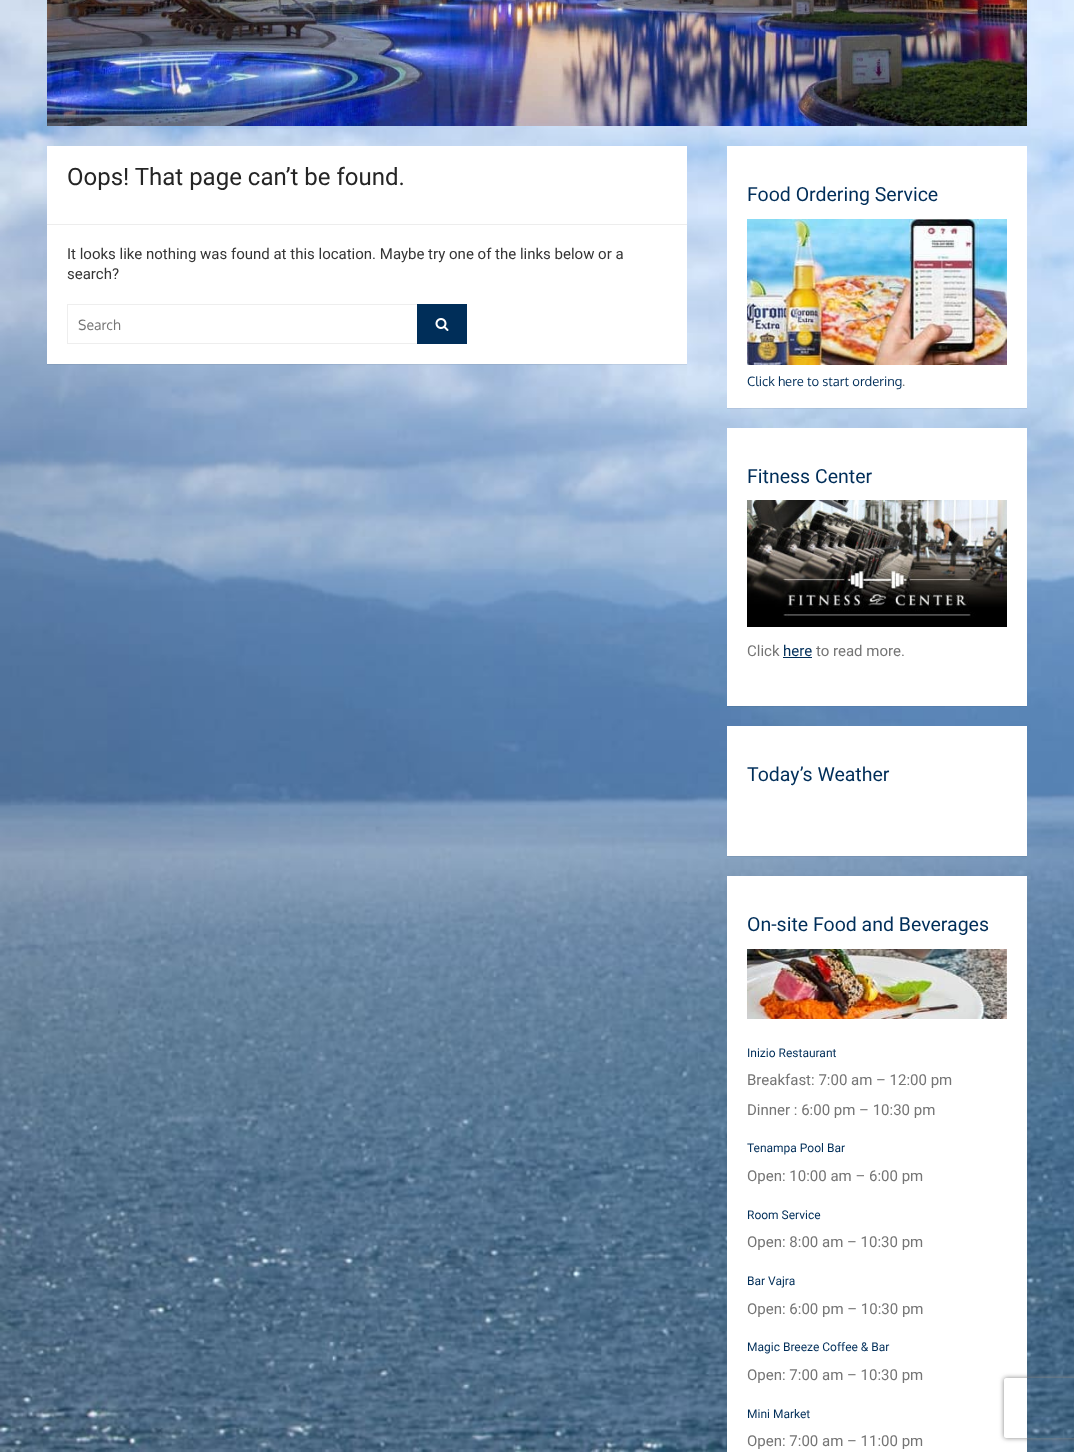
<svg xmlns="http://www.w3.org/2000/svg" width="1074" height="1452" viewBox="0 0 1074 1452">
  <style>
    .t1 { font: 24px Roboto; fill: #252525; }
    .t2 { font: 15px Roboto; fill: #353535; }
    .t3 { font: 14px Oxygen; fill: #757575; }
    .t4 { font: 19.5px Roboto; fill: #002e59; }
    .t5 { font: 13px Oxygen; fill: #002e59; }
    .t6 { font: 13px Oxygen; fill: #757575; }
    .t7 { font: 15px Roboto; fill: #757575; }
    .t8 { font: 15px Roboto; fill: #002e59; }
    .t9 { font: 12px Roboto; fill: #002e59; }
  </style>
  <defs>
    <clipPath id="clip1"><path d="M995 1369H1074V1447H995ZM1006 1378H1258C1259 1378 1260 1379 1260 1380V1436C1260 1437 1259 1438 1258 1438H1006C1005 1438 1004 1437 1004 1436V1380C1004 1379 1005 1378 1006 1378Z" clip-rule="evenodd"/></clipPath>
  </defs>
  <rect width="100%" height="100%" fill="#fff"/>
  <image x="0" y="0" width="1074" height="1452" href="images/1.png"/>
  <image x="47" y="0" width="980" height="126" href="images/2.png"/>
  <rect x="47" y="147" width="640" height="218" fill="#0000000f" filter="blur(0.5px)"/>
  <rect x="47" y="146" width="640" height="218" fill="#fff"/>
  <rect x="47" y="224" width="640" height="1" fill="#ededed"/>
  <text x="67" y="185" class="t1">Oops! That page can’t be found.</text>
  <text x="67" y="259" class="t2">It looks like nothing was found at this location. Maybe try one of the links below or a</text>
  <text x="67" y="279" class="t2">search?</text>
  <rect x="67.5" y="304.5" width="399" height="39" fill="none" stroke="#eee"/>
  <text x="78" y="330" class="t3">Search</text>
  <rect x="417" y="304" width="50" height="40" fill="#002e59"/>
  <image x="435" y="318" width="14" height="13" href="images/3.png"/>
  <rect x="727" y="147" width="300" height="262" fill="#0000000f" filter="blur(0.5px)"/>
  <rect x="727" y="146" width="300" height="262" fill="#fff"/>
  <text x="747" y="201" class="t4">Food Ordering Service</text>
  <image x="747" y="219" width="260" height="146" href="images/4.png"/>
  <text x="747" y="386" class="t5">Click here to start ordering</text>
  <text x="902" y="386" class="t6">.</text>
  <rect x="727" y="429" width="300" height="278" fill="#0000000f" filter="blur(0.5px)"/>
  <rect x="727" y="428" width="300" height="278" fill="#fff"/>
  <text x="747" y="483" class="t4">Fitness Center</text>
  <image x="747" y="500" width="260" height="127" href="images/5.png"/>
  <text x="747" y="656" class="t7">Click</text>
  <text x="783" y="656" class="t8">here</text>
  <rect x="783" y="657" width="29" height="1" fill="#002e59"/>
  <text x="816" y="656" class="t7">to read more.</text>
  <rect x="727" y="727" width="300" height="130" fill="#0000000f" filter="blur(0.5px)"/>
  <rect x="727" y="726" width="300" height="130" fill="#fff"/>
  <text x="747" y="781" class="t4">Today’s Weather</text>
  <rect x="727" y="876" width="300" height="576" fill="#fff"/>
  <text x="747" y="931" class="t4">On-site Food and Beverages</text>
  <image x="747" y="949" width="260" height="70" href="images/6.png"/>
  <text x="747" y="1057" class="t9">Inizio Restaurant</text>
  <text x="747" y="1085" class="t7">Breakfast: 7:00 am – 12:00 pm</text>
  <text x="747" y="1115" class="t7">Dinner : 6:00 pm – 10:30 pm</text>
  <text x="747" y="1152" class="t9">Tenampa Pool Bar</text>
  <text x="747" y="1181" class="t7">Open: 10:00 am – 6:00 pm</text>
  <text x="747" y="1219" class="t9">Room Service</text>
  <text x="747" y="1247" class="t7">Open: 8:00 am – 10:30 pm</text>
  <text x="747" y="1285" class="t9">Bar Vajra</text>
  <text x="747" y="1314" class="t7">Open: 6:00 pm – 10:30 pm</text>
  <text x="747" y="1351" class="t9">Magic Breeze Coffee &amp; Bar</text>
  <text x="747" y="1380" class="t7">Open: 7:00 am – 10:30 pm</text>
  <text x="747" y="1418" class="t9">Mini Market</text>
  <text x="747" y="1446" class="t7">Open: 7:00 am – 11:00 pm</text>
  <g clip-path="url(#clip1)">
    <rect x="1004" y="1378" width="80" height="60" rx="2" fill="#808080" filter="blur(2.5px)"/>
  </g>
</svg>
